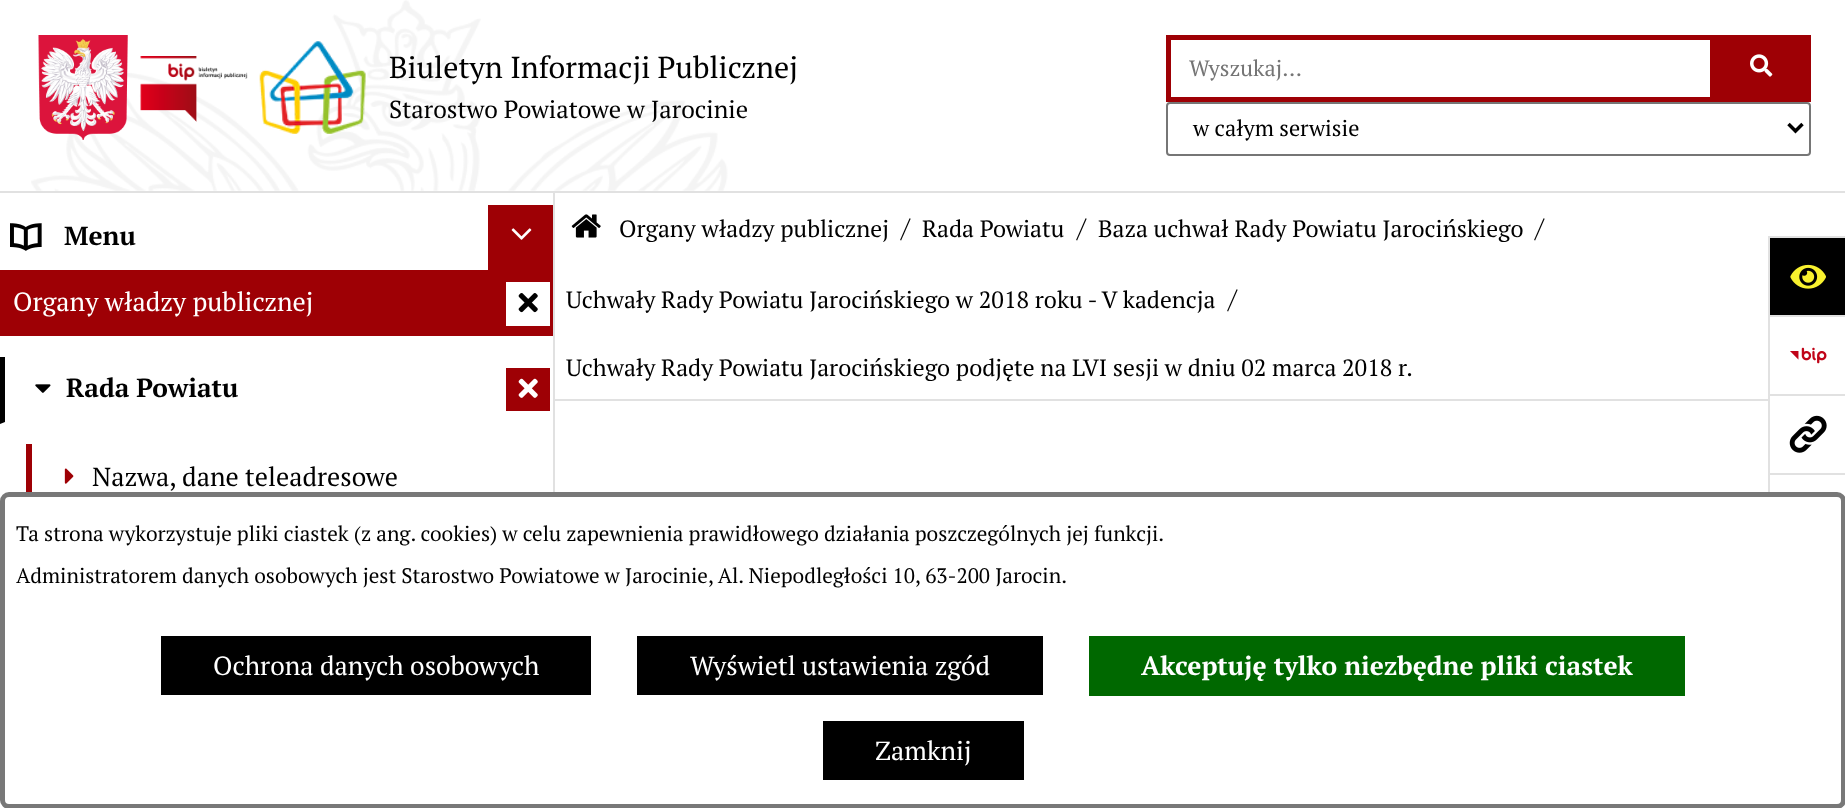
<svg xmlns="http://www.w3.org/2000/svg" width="1845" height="808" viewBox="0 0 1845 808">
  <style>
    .t1 { font: 30.25px PT Serif; fill: #000; }
    .t2 { font: 24.6px PT Serif; fill: #000; }
    .t3 { font: 22.25px PT Serif; fill: #757575; }
    .t4 { font: 22.25px PT Serif; fill: #000; }
    .t5 { font: bold 26.25px PT Serif; fill: #000; }
    .t6 { font: 26.25px PT Serif; fill: #fff; }
    .t7 { font: 26.25px PT Serif; fill: #000; }
    .t8 { font: 23.6px PT Serif; fill: #000; }
    .t9 { font: 21px PT Serif; fill: #000; }
    .t10 { font: bold 26.25px PT Serif; fill: #fff; }
  </style>
  <rect width="100%" height="100%" fill="#fff"/>
  <rect x="0" y="191" width="1845" height="2" fill="#e1e1e1"/>
  <image x="31" y="0" width="697" height="191" href="images/1.png"/>
  <image x="38" y="35" width="90" height="105" href="images/2.png"/>
  <image x="140" y="56" width="108" height="66" href="images/3.png"/>
  <image x="259" y="41" width="107" height="93" href="images/4.png"/>
  <text x="389" y="78" class="t1">Biuletyn Informacji Publicznej</text>
  <text x="389" y="118" class="t2">Starostwo Powiatowe w Jarocinie</text>
  <rect x="1168.5" y="37.5" width="544" height="62" fill="none" stroke="#9e0005" stroke-width="5"/>
  <text x="1189" y="76" class="t3">Wyszukaj...</text>
  <rect x="1715" y="35" width="96" height="67" fill="#9e0005"/>
  <image x="1750" y="54" width="23" height="23" href="images/5.png"/>
  <rect x="1167" y="103" width="643" height="52" rx="3" fill="none" stroke="#767676" stroke-width="2"/>
  <path d="M1788.5 124L1795.5 131L1802.5 124" fill="none" stroke="#000" stroke-width="3.5"/>
  <text x="1193" y="136" class="t4">w całym serwisie</text>
  <image x="10" y="223" width="32" height="28" href="images/6.png"/>
  <text x="64" y="245" class="t5">Menu</text>
  <rect x="488" y="205" width="65" height="65" fill="#9e0005"/>
  <image x="511" y="228" width="21" height="12" href="images/7.png"/>
  <rect x="0" y="270" width="553" height="66" fill="#9e0005"/>
  <text x="13" y="311" class="t6">Organy władzy publicznej</text>
  <rect x="506" y="282" width="44" height="44" fill="#fff"/>
  <image x="518" y="293" width="20" height="20" href="images/8.png"/>
  <path d="M0 424V357H5V422Z" fill="#000"/>
  <image x="35" y="384" width="16" height="9" href="images/9.png"/>
  <text x="66" y="397" class="t5">Rada Powiatu</text>
  <rect x="506" y="368" width="44" height="43" fill="#9e0005"/>
  <image x="518" y="378" width="20" height="20" href="images/10.png"/>
  <path d="M26 513V444H32V511Z" fill="#9e0005"/>
  <image x="64" y="468" width="10" height="16" href="images/11.png"/>
  <text x="92" y="486" class="t7">Nazwa, dane teleadresowe</text>
  <rect x="553" y="193" width="2" height="299" fill="#e1e1e1"/>
  <rect x="1770" y="238" width="75" height="77" fill="#000"/>
  <rect x="1768" y="236" width="77" height="2" fill="#e1e1e1"/>
  <rect x="1768" y="236" width="2" height="79" fill="#e1e1e1"/>
  <image x="1790" y="264" width="36" height="25" href="images/12.png"/>
  <rect x="1768" y="315" width="77" height="2" fill="#e1e1e1"/>
  <rect x="1768" y="315" width="2" height="79" fill="#e1e1e1"/>
  <image x="1790" y="347" width="37" height="17" href="images/13.png"/>
  <rect x="1768" y="394" width="77" height="2" fill="#e1e1e1"/>
  <rect x="1768" y="394" width="2" height="79" fill="#e1e1e1"/>
  <image x="1789" y="415" width="38" height="38" href="images/14.png"/>
  <rect x="1768" y="473" width="77" height="2" fill="#e1e1e1"/>
  <rect x="1768" y="473" width="2" height="19" fill="#e1e1e1"/>
  <rect x="555" y="399" width="1213" height="2" fill="#e1e1e1"/>
  <image x="571" y="214" width="30" height="24" href="images/15.png"/>
  <text x="619" y="237" class="t8">Organy władzy publicznej</text>
  <text x="901" y="237" class="t7">/</text>
  <text x="922" y="237" class="t8">Rada Powiatu</text>
  <text x="1077" y="237" class="t7">/</text>
  <text x="1098" y="237" class="t8">Baza uchwał Rady Powiatu Jarocińskiego</text>
  <text x="1535" y="237" class="t7">/</text>
  <text x="566" y="308" class="t8">Uchwały Rady Powiatu Jarocińskiego w 2018 roku - V kadencja</text>
  <text x="1228" y="308" class="t7">/</text>
  <text x="566" y="376" class="t8">Uchwały Rady Powiatu Jarocińskiego podjęte na LVI sesji w dniu 02 marca 2018 r.</text>
  <rect x="2.5" y="494.5" width="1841" height="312" rx="6.5" fill="#fff" stroke="#787878" stroke-width="5"/>
  <text x="16" y="541" class="t9">Ta strona wykorzystuje pliki ciastek (z ang. cookies) w celu zapewnienia prawidłowego działania poszczególnych jej funkcji.</text>
  <text x="16" y="583" class="t9">Administratorem danych osobowych jest Starostwo Powiatowe w Jarocinie, Al. Niepodległości 10, 63-200 Jarocin.</text>
  <rect x="161" y="636" width="430" height="59" fill="#000"/>
  <text x="213" y="675" class="t6">Ochrona danych osobowych</text>
  <rect x="637" y="636" width="406" height="59" fill="#000"/>
  <text x="690" y="675" class="t6">Wyświetl ustawienia zgód</text>
  <rect x="1089" y="636" width="596" height="60" fill="#006800"/>
  <text x="1141" y="675" class="t10">Akceptuję tylko niezbędne pliki ciastek</text>
  <rect x="823" y="721" width="201" height="59" fill="#000"/>
  <text x="875" y="760" class="t6">Zamknij</text>
</svg>
